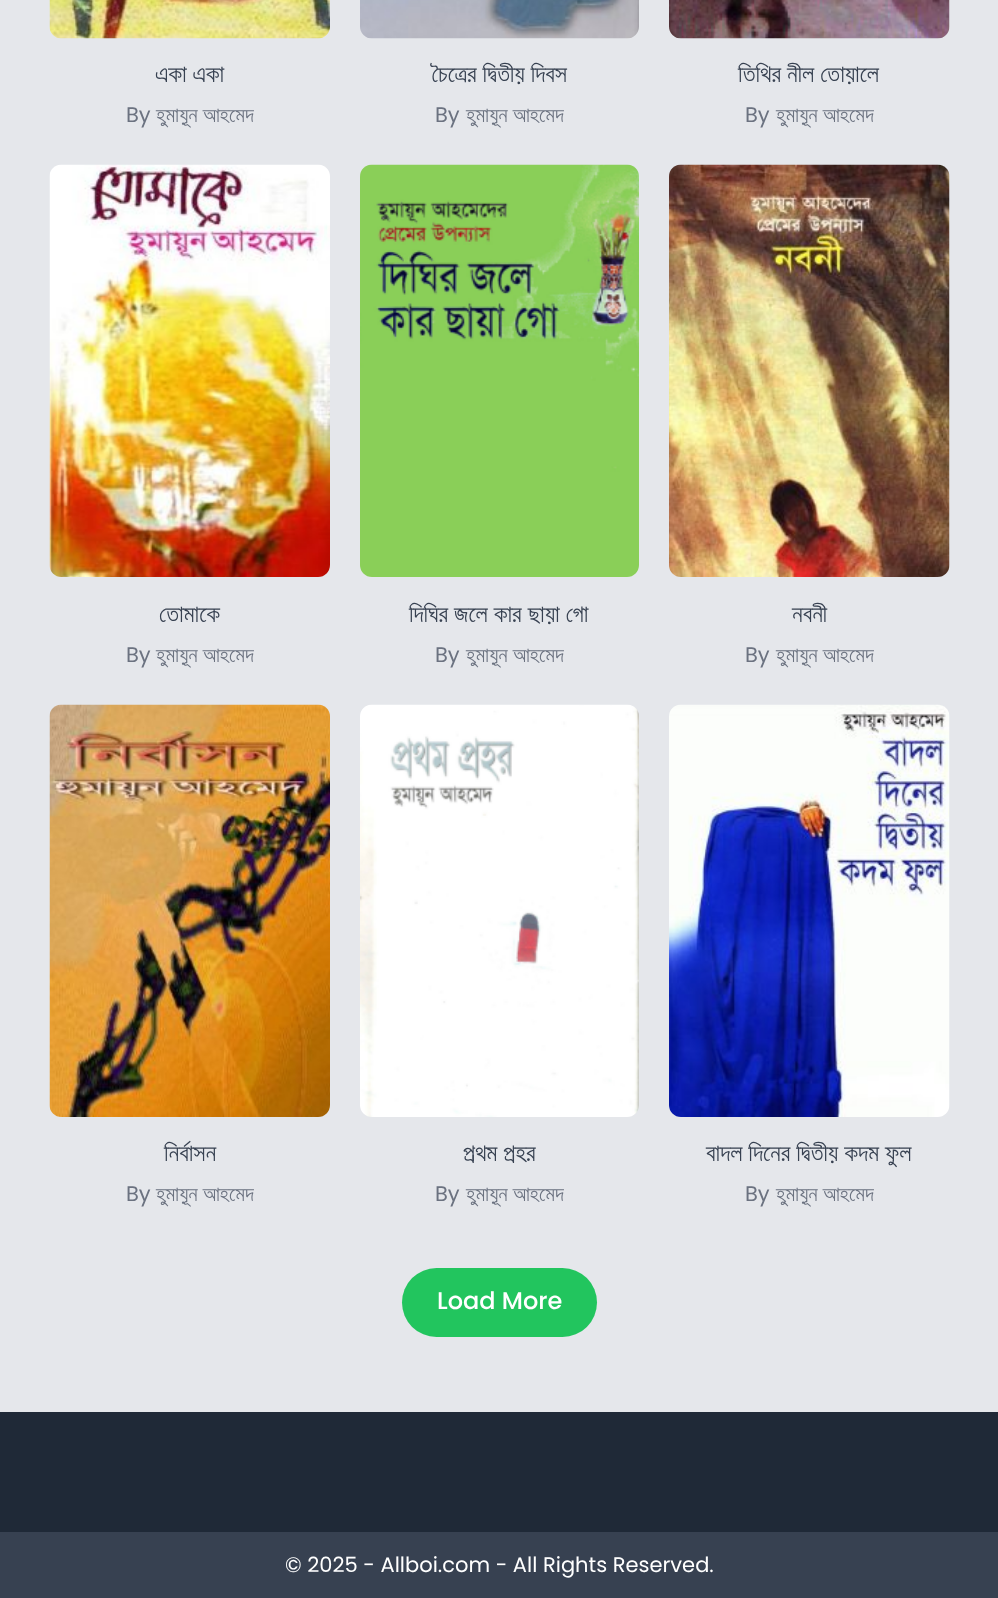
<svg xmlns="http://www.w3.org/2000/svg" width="998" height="1598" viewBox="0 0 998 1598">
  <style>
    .t1 { font: 24px FreeSans; fill: #374151; }
    .t2 { font: 21px Poppins; fill: #6b7280; }
    .t3 { font: 21px FreeSans; fill: #6b7280; }
    .t4 { font: 500 24px Poppins; fill: #fff; }
    .t5 { font: 21px Poppins; fill: #fff; }
  </style>
  <rect width="100%" height="100%" fill="#e5e7eb"/>
  <image x="49" y="0" width="281" height="39" href="images/1.png"/>
  <text x="155" y="82" class="t1">একা একা</text>
  <text x="126" y="122" class="t2">By</text>
  <text x="156" y="122" class="t3">হুমায়ূন আহমেদ</text>
  <image x="360" y="0" width="279" height="39" href="images/2.png"/>
  <text x="432" y="82" class="t1">চৈত্রের দ্বিতীয় দিবস</text>
  <text x="435" y="122" class="t2">By</text>
  <text x="466" y="122" class="t3">হুমায়ূন আহমেদ</text>
  <image x="669" y="0" width="281" height="39" href="images/3.png"/>
  <text x="738" y="82" class="t1">তিথির নীল তোয়ালে</text>
  <text x="745" y="122" class="t2">By</text>
  <text x="776" y="122" class="t3">হুমায়ূন আহমেদ</text>
  <image x="49" y="164" width="281" height="413" href="images/4.png"/>
  <text x="159" y="622" class="t1">তোমাকে</text>
  <text x="126" y="662" class="t2">By</text>
  <text x="156" y="662" class="t3">হুমায়ূন আহমেদ</text>
  <image x="360" y="164" width="279" height="413" href="images/5.png"/>
  <text x="409" y="622" class="t1">দিঘির জলে কার ছায়া গো</text>
  <text x="435" y="662" class="t2">By</text>
  <text x="466" y="662" class="t3">হুমায়ূন আহমেদ</text>
  <image x="669" y="164" width="281" height="413" href="images/6.png"/>
  <text x="792" y="622" class="t1">নবনী</text>
  <text x="745" y="662" class="t2">By</text>
  <text x="776" y="662" class="t3">হুমায়ূন আহমেদ</text>
  <image x="49" y="704" width="281" height="413" href="images/7.png"/>
  <text x="164" y="1161" class="t1">নির্বাসন</text>
  <text x="126" y="1201" class="t2">By</text>
  <text x="156" y="1201" class="t3">হুমায়ূন আহমেদ</text>
  <image x="360" y="704" width="279" height="413" href="images/8.png"/>
  <text x="463" y="1161" class="t1">প্রথম প্রহর</text>
  <text x="435" y="1201" class="t2">By</text>
  <text x="466" y="1201" class="t3">হুমায়ূন আহমেদ</text>
  <image x="669" y="704" width="281" height="413" href="images/9.png"/>
  <text x="706" y="1161" class="t1">বাদল দিনের দ্বিতীয় কদম ফুল</text>
  <text x="745" y="1201" class="t2">By</text>
  <text x="776" y="1201" class="t3">হুমায়ূন আহমেদ</text>
  <rect x="402" y="1268" width="195" height="69" rx="34.5" fill="#22c55e"/>
  <text x="437" y="1309" class="t4">Load More</text>
  <rect x="0" y="1412" width="998" height="120" fill="#1f2937"/>
  <rect x="0" y="1532" width="998" height="66" fill="#374151"/>
  <text x="285" y="1572" class="t5">© 2025 - Allboi.com - All Rights Reserved.</text>
</svg>
